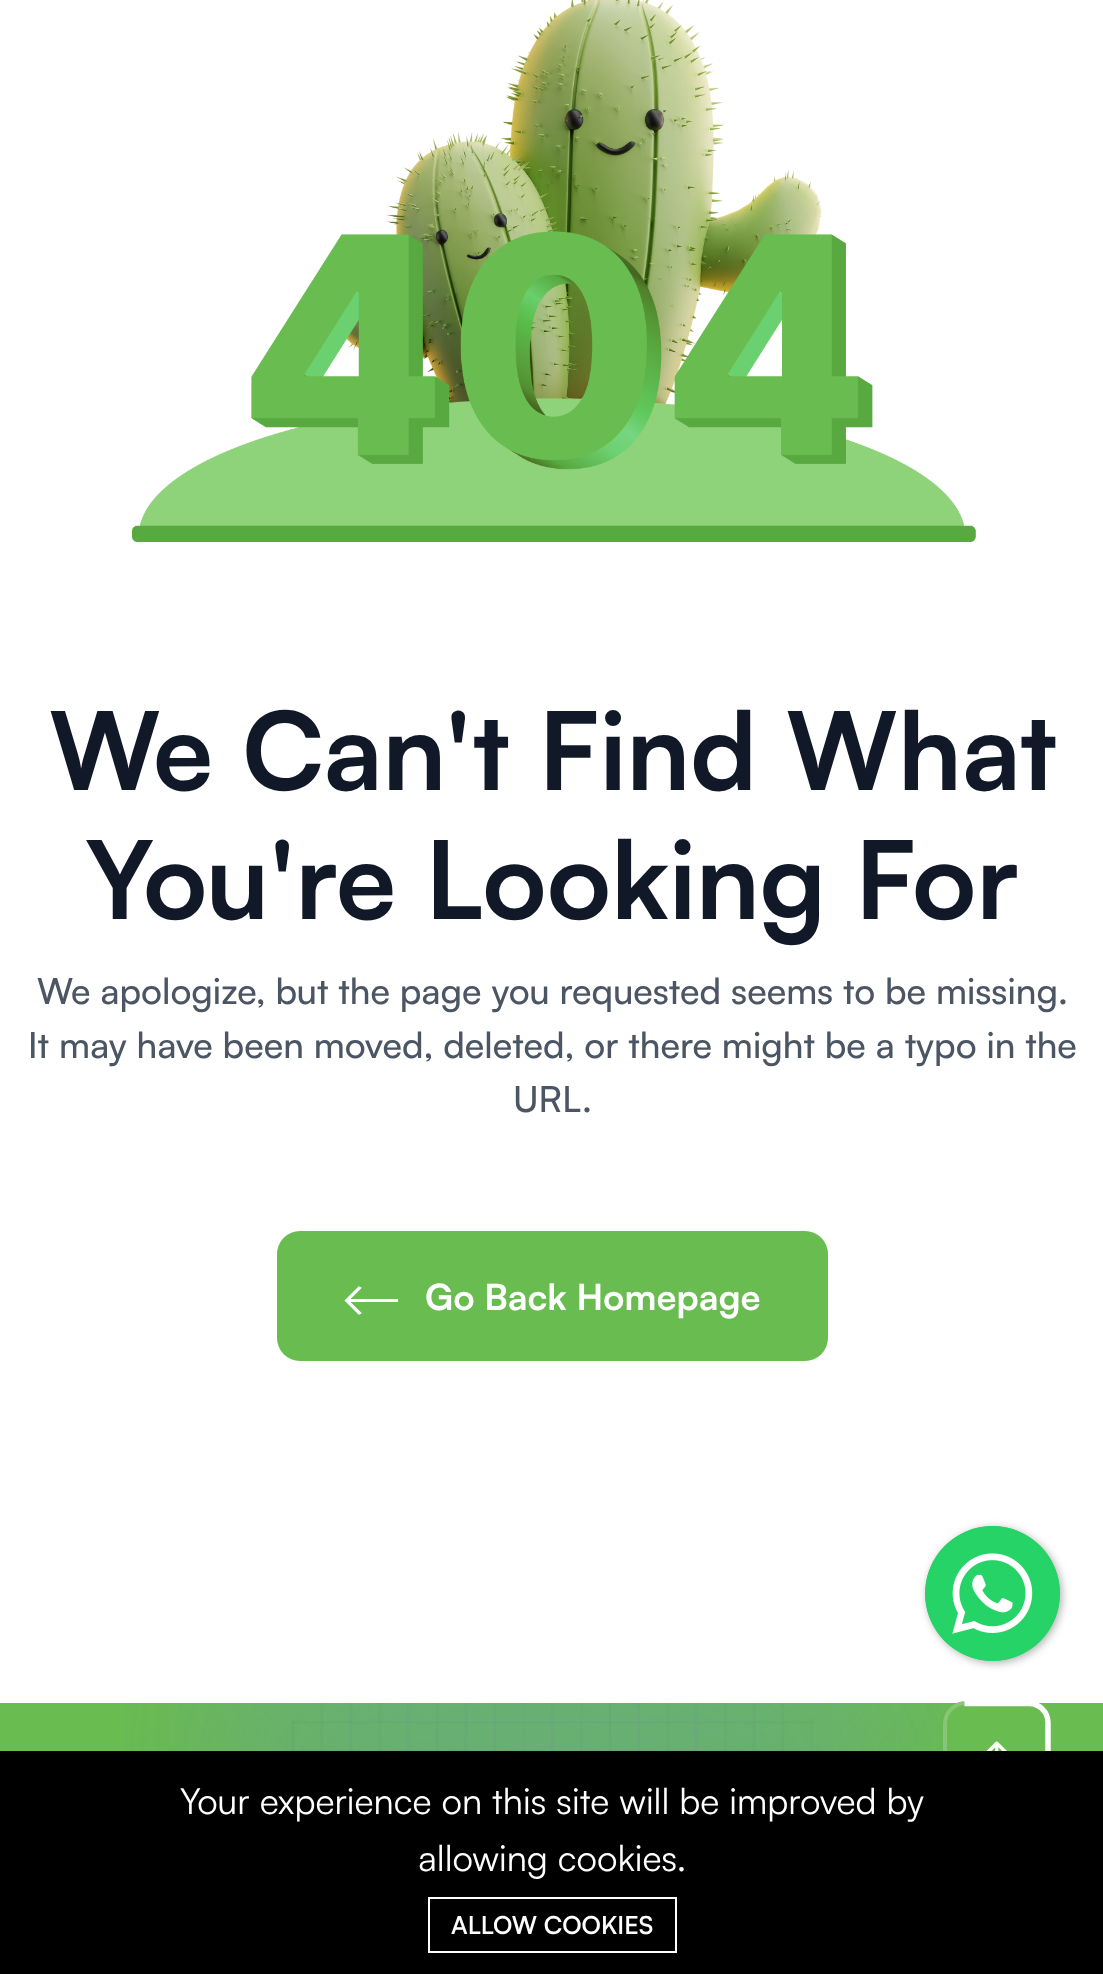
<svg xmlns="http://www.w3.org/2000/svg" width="1103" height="1974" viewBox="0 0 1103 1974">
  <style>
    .t1 { font: bold 108px Satoshi; fill: #111827; }
    .t2 { font: 500 36px Satoshi; fill: #4b5563; }
    .t3 { font: bold 36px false; fill: #fff; }
    .t4 { font: 36px Satoshi; fill: #fff; }
    .t5 { font: 600 24.75px Satoshi; fill: #fff; }
  </style>
  <defs>
    <clipPath id="clip1"><rect x="344" y="1285" width="54" height="31"/></clipPath>
    <clipPath id="clip2"><rect x="943" y="1701" width="108" height="108"/></clipPath>
  </defs>
  <rect width="100%" height="100%" fill="#fff"/>
  <image x="132" y="0" width="844" height="542" href="images/1.png"/>
  <text x="49" y="790" class="t1">We Can't Find What</text>
  <text x="85" y="919" class="t1">You're Looking For</text>
  <text x="37" y="1004" class="t2">We apologize, but the page you requested seems to be missing.</text>
  <text x="28" y="1058" class="t2">It may have been moved, deleted, or there might be a typo in the</text>
  <text x="513" y="1112" class="t2">URL.</text>
  <rect x="277" y="1231" width="551" height="130" rx="23" fill="#69bd50"/>
  <g clip-path="url(#clip1)">
    <path d="M351 1301H397V1300H348L360 1288L359 1287.5L346 1300.5L359 1313.5L360 1313L348 1301Z" fill="none" stroke="#fff" stroke-width="2.2"/>
  </g>
  <text x="425" y="1310" class="t3">Go Back Homepage</text>
  <rect x="927" y="1528" width="135" height="135" rx="67.5" fill="#3c3c3c66" filter="blur(4.5px)"/>
  <circle cx="992.5" cy="1593.5" r="67.5" fill="#25d366"/>
  <image x="925" y="1526" width="135" height="135" href="images/2.png"/>
  <rect x="0" y="1703" width="1103" height="48" fill="#69bd50"/>
  <image x="285" y="1703" width="537" height="48" href="images/6.png"/>
  <image x="170" y="1703" width="771" height="48" href="images/5.png"/>
  <image x="124" y="1703" width="833" height="48" href="images/4.png"/>
  <rect x="943" y="1701" width="108" height="108" rx="23" fill="#69bd50"/>
  <rect x="945" y="1703" width="104" height="104" rx="21" fill="none" stroke="#e3e5e940" stroke-width="4"/>
  <g clip-path="url(#clip2)">
    <path d="M964.5 1703.5H1029C1039.5 1703.5 1048 1712 1048 1722.5V1780.5" fill="none" stroke="#fff" stroke-width="5.4"/>
  </g>
  <image x="986" y="1741" width="21" height="10" href="images/3.png"/>
  <rect x="0" y="1751" width="1103" height="223" fill="#000"/>
  <text x="180" y="1814" class="t4">Your experience on this site will be improved by</text>
  <text x="418" y="1871" class="t4">allowing cookies.</text>
  <rect x="429" y="1898" width="247" height="54" fill="none" stroke="#fff" stroke-width="2"/>
  <text x="451" y="1934" class="t5">ALLOW COOKIES</text>
</svg>
